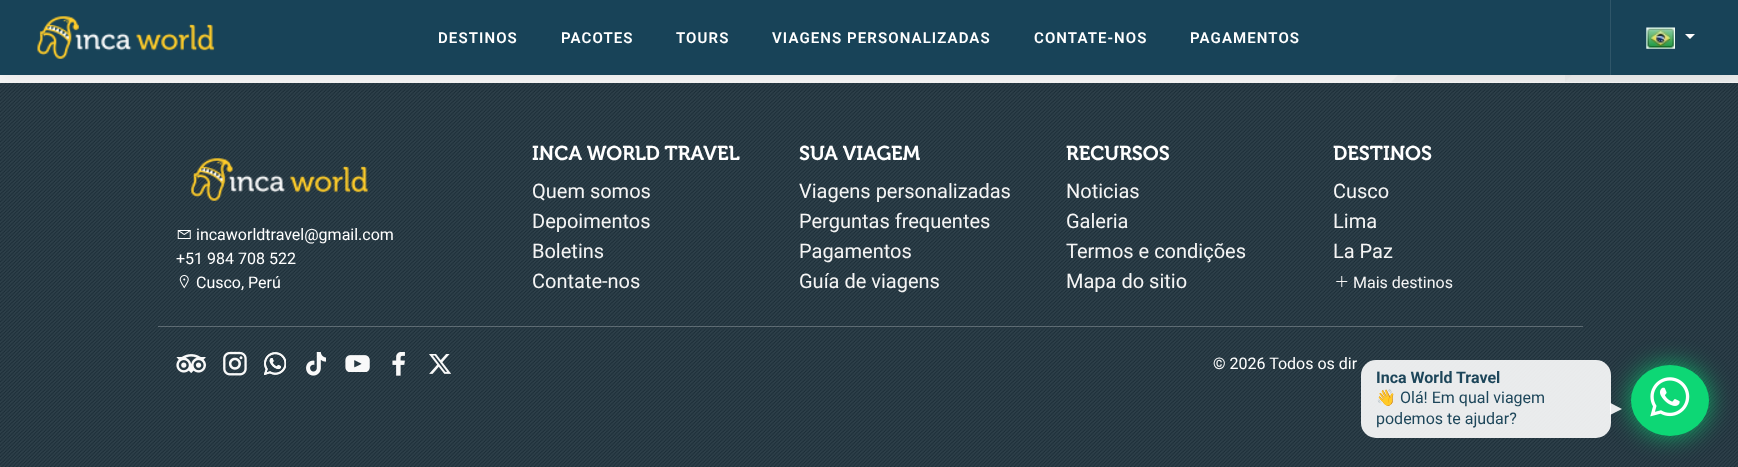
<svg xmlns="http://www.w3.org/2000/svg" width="1738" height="467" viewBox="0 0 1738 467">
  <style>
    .t1 { font: 600 15px Roboto; letter-spacing: 1.1px; fill: #fff; }
    .t2 { font: 16px Roboto; fill: #fff; }
    .t3 { font: 20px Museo; fill: #fff; }
    .t4 { font: 20px Roboto; fill: #f5f5f5; }
    .t5 { font: 16px Roboto; fill: #f5f5f5; }
    .t6 { font: bold 16px Roboto; fill: #1d465a; }
    .t7 { font: 16px Noto Color Emoji; fill: #1d465a; }
    .t8 { font: 16px Roboto; fill: #1d465a; }
  </style>
  <rect width="100%" height="100%" fill="#1c303b"/>
  <rect x="0" y="75" width="1738" height="8" fill="#f5f5f5"/>
  <path d="M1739 82V-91L1565 82Z" fill="#ebecec"/>
  <path d="M1565 82V-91L1391 82Z" fill="#efefef"/>
  <path d="M1565 82V-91H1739Z" fill="#2125290f"/>
  <image x="0" y="83" width="1738" height="384" href="images/3.png"/>
  <rect x="0" y="0" width="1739" height="75" fill="#00000012" filter="blur(9.5px)"/>
  <rect x="0" y="0" width="1738" height="75" fill="#184358"/>
  <image x="37" y="16" width="178" height="43" href="images/1.png"/>
  <text x="438" y="43" class="t1">DESTINOS</text>
  <text x="561" y="43" class="t1">PACOTES</text>
  <text x="676" y="43" class="t1">TOURS</text>
  <text x="772" y="43" class="t1">VIAGENS PERSONALIZADAS</text>
  <text x="1034" y="43" class="t1">CONTATE-NOS</text>
  <text x="1190" y="43" class="t1">PAGAMENTOS</text>
  <rect x="1610" y="0" width="1" height="75" fill="#2f5669"/>
  <image x="1646" y="27" width="29" height="22" href="images/2.png"/>
  <path d="M1685 34H1695L1690 39Z" fill="#fff"/>
  <rect x="158" y="326" width="1425" height="1" fill="#ffffff40"/>
  <image x="191" y="158" width="178" height="43" href="images/4.png"/>
  <image x="177" y="230" width="14" height="9" href="images/5.png"/>
  <text x="196" y="240" class="t2">incaworldtravel@gmail.com</text>
  <text x="176" y="264" class="t2">+51 984 708 522</text>
  <image x="179" y="275" width="10" height="14" href="images/6.png"/>
  <text x="196" y="288" class="t2">Cusco, Perú</text>
  <text x="532" y="160" class="t3">INCA WORLD TRAVEL</text>
  <text x="532" y="198" class="t4">Quem somos</text>
  <text x="532" y="228" class="t4">Depoimentos</text>
  <text x="532" y="258" class="t4">Boletins</text>
  <text x="532" y="288" class="t4">Contate-nos</text>
  <text x="799" y="160" class="t3">SUA VIAGEM</text>
  <text x="799" y="198" class="t4">Viagens personalizadas</text>
  <text x="799" y="228" class="t4">Perguntas frequentes</text>
  <text x="799" y="258" class="t4">Pagamentos</text>
  <text x="799" y="288" class="t4">Guía de viagens</text>
  <text x="1066" y="160" class="t3">RECURSOS</text>
  <text x="1066" y="198" class="t4">Noticias</text>
  <text x="1066" y="228" class="t4">Galeria</text>
  <text x="1066" y="258" class="t4">Termos e condições</text>
  <text x="1066" y="288" class="t4">Mapa do sitio</text>
  <text x="1333" y="160" class="t3">DESTINOS</text>
  <text x="1333" y="198" class="t4">Cusco</text>
  <text x="1333" y="228" class="t4">Lima</text>
  <text x="1333" y="258" class="t4">La Paz</text>
  <image x="1336" y="276" width="12" height="11" href="images/7.png"/>
  <text x="1353" y="288" class="t5">Mais destinos</text>
  <image x="176" y="354" width="30" height="19" href="images/8.png"/>
  <image x="223" y="351" width="24" height="25" href="images/9.png"/>
  <image x="264" y="352" width="22" height="23" href="images/10.png"/>
  <image x="306" y="352" width="20" height="24" href="images/11.png"/>
  <image x="345" y="355" width="25" height="17" href="images/12.png"/>
  <image x="392" y="352" width="13" height="24" href="images/13.png"/>
  <image x="429" y="354" width="22" height="20" href="images/14.png"/>
  <text x="1213" y="369" class="t2">© 2026 Todos os dir</text>
  <rect x="1631" y="365" width="78" height="71" rx="35.5" fill="#00e676a8" filter="blur(12.5px)"/>
  <rect x="1361" y="360" width="250" height="78" rx="15" fill="#ffffffe6"/>
  <text x="1376" y="383" class="t6">Inca World Travel</text>
  <text x="1376" y="403" class="t7">👋</text>
  <text x="1400" y="403" class="t8">Olá! Em qual viagem</text>
  <path d="M1610 403V415L1622 409L1610.5 403Z" fill="#ffffffe6"/>
  <text x="1376" y="424" class="t8">podemos te ajudar?</text>
  <ellipse cx="1670" cy="400.5" rx="39" ry="35.5" fill="#0dd775"/>
  <image x="1650" y="377" width="40" height="40" href="images/15.png"/>
</svg>
